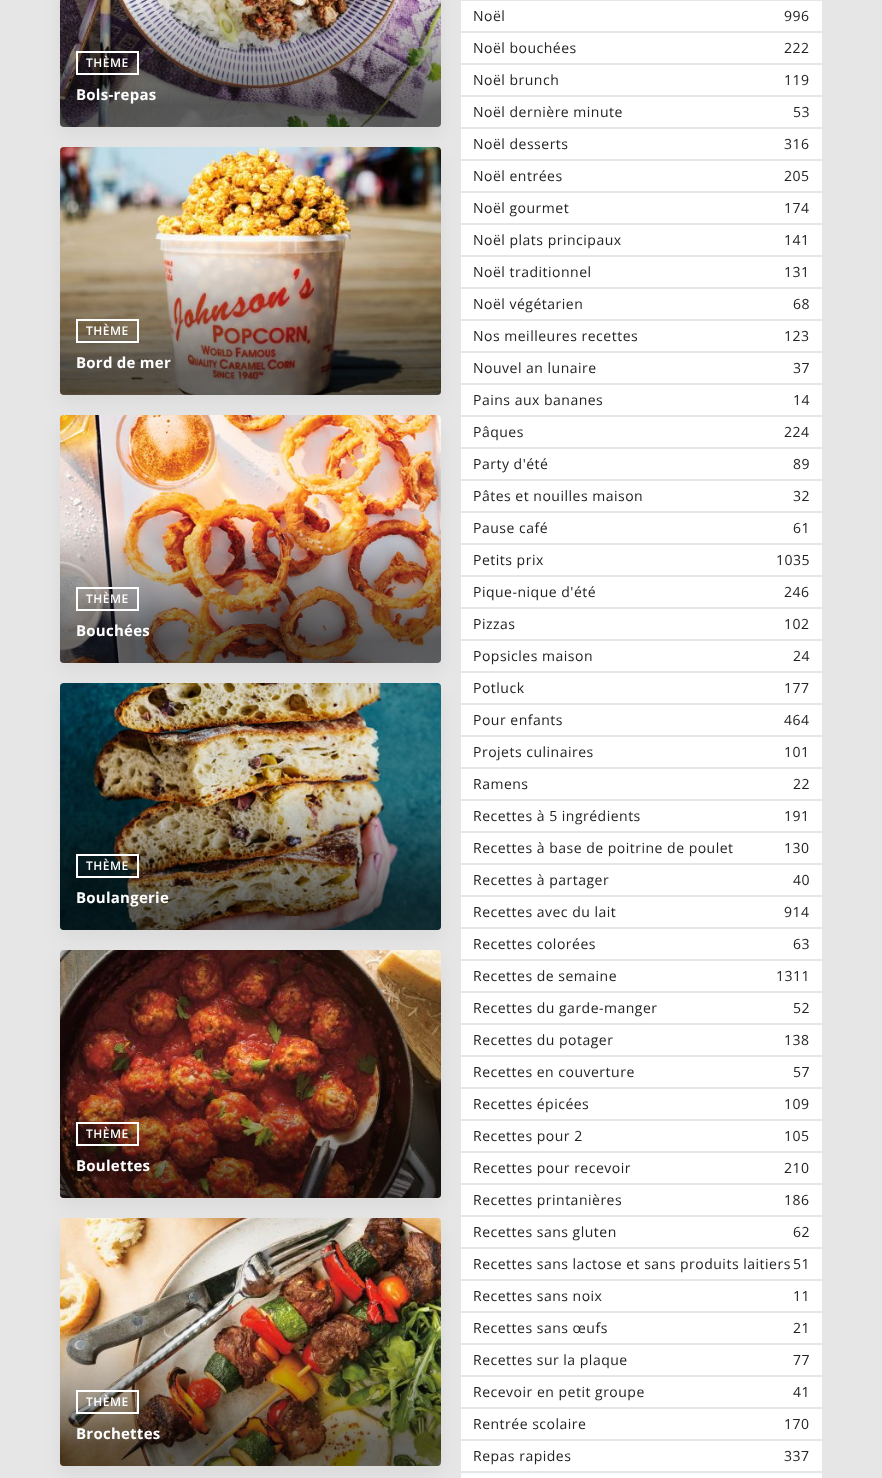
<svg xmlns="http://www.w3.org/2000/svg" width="882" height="1478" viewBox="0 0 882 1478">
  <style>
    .t1 { font: 600 12px Open Sans; letter-spacing: 0.5px; fill: #fff; }
    .t2 { font: bold 15px Open Sans; letter-spacing: 0.25px; fill: #fff; }
    .t3 { font: 14px Open Sans; letter-spacing: 0.5px; fill: #222; }
  </style>
  <defs>
    <linearGradient id="g1" gradientUnits="userSpaceOnUse" x1="250" y1="-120" x2="251" y2="127"><stop offset="0.44" stop-color="#000" stop-opacity="0"/><stop offset="0.91" stop-color="#000" stop-opacity="0.6"/></linearGradient>
    <linearGradient id="g2" gradientUnits="userSpaceOnUse" x1="250" y1="147" x2="251" y2="395"><stop offset="0.44" stop-color="#000" stop-opacity="0"/><stop offset="0.91" stop-color="#000" stop-opacity="0.6"/></linearGradient>
    <linearGradient id="g3" gradientUnits="userSpaceOnUse" x1="250" y1="415" x2="251" y2="663"><stop offset="0.44" stop-color="#000" stop-opacity="0"/><stop offset="0.91" stop-color="#000" stop-opacity="0.6"/></linearGradient>
    <linearGradient id="g4" gradientUnits="userSpaceOnUse" x1="250" y1="683" x2="251" y2="930"><stop offset="0.44" stop-color="#000" stop-opacity="0"/><stop offset="0.91" stop-color="#000" stop-opacity="0.6"/></linearGradient>
    <linearGradient id="g5" gradientUnits="userSpaceOnUse" x1="250" y1="950" x2="251" y2="1198"><stop offset="0.44" stop-color="#000" stop-opacity="0"/><stop offset="0.91" stop-color="#000" stop-opacity="0.6"/></linearGradient>
    <linearGradient id="g6" gradientUnits="userSpaceOnUse" x1="250" y1="1218" x2="251" y2="1466"><stop offset="0.44" stop-color="#000" stop-opacity="0"/><stop offset="0.91" stop-color="#000" stop-opacity="0.6"/></linearGradient>
  </defs>
  <rect width="100%" height="100%" fill="#e6e6e6"/>
  <rect x="60" y="-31" width="381" height="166" rx="4" fill="#0000000d" filter="blur(9px)"/>
  <image x="60" y="0" width="381" height="127" href="images/1.png"/>
  <rect x="60" y="-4" width="381" height="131" rx="4" fill="url(#g1)"/>
  <rect x="77" y="52" width="61" height="22" fill="none" stroke="#fff" stroke-width="2"/>
  <text x="86" y="67" class="t1">THÈME</text>
  <text x="76" y="100" class="t2">Bols-repas</text>
  <rect x="60" y="155" width="381" height="248" rx="4" fill="#0000000d" filter="blur(9px)"/>
  <image x="60" y="147" width="381" height="248" href="images/2.png"/>
  <rect x="60" y="147" width="381" height="248" rx="4" fill="url(#g2)"/>
  <rect x="77" y="320" width="61" height="22" fill="none" stroke="#fff" stroke-width="2"/>
  <text x="86" y="335" class="t1">THÈME</text>
  <text x="76" y="368" class="t2">Bord de mer</text>
  <rect x="60" y="423" width="381" height="248" rx="4" fill="#0000000d" filter="blur(9px)"/>
  <image x="60" y="415" width="381" height="248" href="images/3.png"/>
  <rect x="60" y="415" width="381" height="248" rx="4" fill="url(#g3)"/>
  <rect x="77" y="588" width="61" height="22" fill="none" stroke="#fff" stroke-width="2"/>
  <text x="86" y="603" class="t1">THÈME</text>
  <text x="76" y="636" class="t2">Bouchées</text>
  <rect x="60" y="691" width="381" height="247" rx="4" fill="#0000000d" filter="blur(9px)"/>
  <image x="60" y="683" width="381" height="247" href="images/4.png"/>
  <rect x="60" y="683" width="381" height="247" rx="4" fill="url(#g4)"/>
  <rect x="77" y="855" width="61" height="22" fill="none" stroke="#fff" stroke-width="2"/>
  <text x="86" y="870" class="t1">THÈME</text>
  <text x="76" y="903" class="t2">Boulangerie</text>
  <rect x="60" y="958" width="381" height="248" rx="4" fill="#0000000d" filter="blur(9px)"/>
  <image x="60" y="950" width="381" height="248" href="images/5.png"/>
  <rect x="60" y="950" width="381" height="248" rx="4" fill="url(#g5)"/>
  <rect x="77" y="1123" width="61" height="22" fill="none" stroke="#fff" stroke-width="2"/>
  <text x="86" y="1138" class="t1">THÈME</text>
  <text x="76" y="1171" class="t2">Boulettes</text>
  <rect x="60" y="1226" width="381" height="248" rx="4" fill="#0000000d" filter="blur(9px)"/>
  <image x="60" y="1218" width="381" height="248" href="images/6.png"/>
  <rect x="60" y="1218" width="381" height="248" rx="4" fill="url(#g6)"/>
  <rect x="77" y="1391" width="61" height="22" fill="none" stroke="#fff" stroke-width="2"/>
  <text x="86" y="1406" class="t1">THÈME</text>
  <text x="76" y="1439" class="t2">Brochettes</text>
  <rect x="461" y="1" width="361" height="30" fill="#fff"/>
  <text x="473" y="21" class="t3">Noël</text>
  <text x="784" y="21" class="t3">996</text>
  <rect x="461" y="33" width="361" height="30" fill="#fff"/>
  <text x="473" y="53" class="t3">Noël bouchées</text>
  <text x="784" y="53" class="t3">222</text>
  <rect x="461" y="65" width="361" height="30" fill="#fff"/>
  <text x="473" y="85" class="t3">Noël brunch</text>
  <text x="784" y="85" class="t3">119</text>
  <rect x="461" y="97" width="361" height="30" fill="#fff"/>
  <text x="473" y="117" class="t3">Noël dernière minute</text>
  <text x="793" y="117" class="t3">53</text>
  <rect x="461" y="129" width="361" height="30" fill="#fff"/>
  <text x="473" y="149" class="t3">Noël desserts</text>
  <text x="784" y="149" class="t3">316</text>
  <rect x="461" y="161" width="361" height="30" fill="#fff"/>
  <text x="473" y="181" class="t3">Noël entrées</text>
  <text x="784" y="181" class="t3">205</text>
  <rect x="461" y="193" width="361" height="30" fill="#fff"/>
  <text x="473" y="213" class="t3">Noël gourmet</text>
  <text x="784" y="213" class="t3">174</text>
  <rect x="461" y="225" width="361" height="30" fill="#fff"/>
  <text x="473" y="245" class="t3">Noël plats principaux</text>
  <text x="784" y="245" class="t3">141</text>
  <rect x="461" y="257" width="361" height="30" fill="#fff"/>
  <text x="473" y="277" class="t3">Noël traditionnel</text>
  <text x="784" y="277" class="t3">131</text>
  <rect x="461" y="289" width="361" height="30" fill="#fff"/>
  <text x="473" y="309" class="t3">Noël végétarien</text>
  <text x="793" y="309" class="t3">68</text>
  <rect x="461" y="321" width="361" height="30" fill="#fff"/>
  <text x="473" y="341" class="t3">Nos meilleures recettes</text>
  <text x="784" y="341" class="t3">123</text>
  <rect x="461" y="353" width="361" height="30" fill="#fff"/>
  <text x="473" y="373" class="t3">Nouvel an lunaire</text>
  <text x="793" y="373" class="t3">37</text>
  <rect x="461" y="385" width="361" height="30" fill="#fff"/>
  <text x="473" y="405" class="t3">Pains aux bananes</text>
  <text x="793" y="405" class="t3">14</text>
  <rect x="461" y="417" width="361" height="30" fill="#fff"/>
  <text x="473" y="437" class="t3">Pâques</text>
  <text x="784" y="437" class="t3">224</text>
  <rect x="461" y="449" width="361" height="30" fill="#fff"/>
  <text x="473" y="469" class="t3">Party d'été</text>
  <text x="793" y="469" class="t3">89</text>
  <rect x="461" y="481" width="361" height="30" fill="#fff"/>
  <text x="473" y="501" class="t3">Pâtes et nouilles maison</text>
  <text x="793" y="501" class="t3">32</text>
  <rect x="461" y="513" width="361" height="30" fill="#fff"/>
  <text x="473" y="533" class="t3">Pause café</text>
  <text x="793" y="533" class="t3">61</text>
  <rect x="461" y="545" width="361" height="30" fill="#fff"/>
  <text x="473" y="565" class="t3">Petits prix</text>
  <text x="776" y="565" class="t3">1035</text>
  <rect x="461" y="577" width="361" height="30" fill="#fff"/>
  <text x="473" y="597" class="t3">Pique-nique d'été</text>
  <text x="784" y="597" class="t3">246</text>
  <rect x="461" y="609" width="361" height="30" fill="#fff"/>
  <text x="473" y="629" class="t3">Pizzas</text>
  <text x="784" y="629" class="t3">102</text>
  <rect x="461" y="641" width="361" height="30" fill="#fff"/>
  <text x="473" y="661" class="t3">Popsicles maison</text>
  <text x="793" y="661" class="t3">24</text>
  <rect x="461" y="673" width="361" height="30" fill="#fff"/>
  <text x="473" y="693" class="t3">Potluck</text>
  <text x="784" y="693" class="t3">177</text>
  <rect x="461" y="705" width="361" height="30" fill="#fff"/>
  <text x="473" y="725" class="t3">Pour enfants</text>
  <text x="784" y="725" class="t3">464</text>
  <rect x="461" y="737" width="361" height="30" fill="#fff"/>
  <text x="473" y="757" class="t3">Projets culinaires</text>
  <text x="784" y="757" class="t3">101</text>
  <rect x="461" y="769" width="361" height="30" fill="#fff"/>
  <text x="473" y="789" class="t3">Ramens</text>
  <text x="793" y="789" class="t3">22</text>
  <rect x="461" y="801" width="361" height="30" fill="#fff"/>
  <text x="473" y="821" class="t3">Recettes à 5 ingrédients</text>
  <text x="784" y="821" class="t3">191</text>
  <rect x="461" y="833" width="361" height="30" fill="#fff"/>
  <text x="473" y="853" class="t3">Recettes à base de poitrine de poulet</text>
  <text x="784" y="853" class="t3">130</text>
  <rect x="461" y="865" width="361" height="30" fill="#fff"/>
  <text x="473" y="885" class="t3">Recettes à partager</text>
  <text x="793" y="885" class="t3">40</text>
  <rect x="461" y="897" width="361" height="30" fill="#fff"/>
  <text x="473" y="917" class="t3">Recettes avec du lait</text>
  <text x="784" y="917" class="t3">914</text>
  <rect x="461" y="929" width="361" height="30" fill="#fff"/>
  <text x="473" y="949" class="t3">Recettes colorées</text>
  <text x="793" y="949" class="t3">63</text>
  <rect x="461" y="961" width="361" height="30" fill="#fff"/>
  <text x="473" y="981" class="t3">Recettes de semaine</text>
  <text x="776" y="981" class="t3">1311</text>
  <rect x="461" y="993" width="361" height="30" fill="#fff"/>
  <text x="473" y="1013" class="t3">Recettes du garde-manger</text>
  <text x="793" y="1013" class="t3">52</text>
  <rect x="461" y="1025" width="361" height="30" fill="#fff"/>
  <text x="473" y="1045" class="t3">Recettes du potager</text>
  <text x="784" y="1045" class="t3">138</text>
  <rect x="461" y="1057" width="361" height="30" fill="#fff"/>
  <text x="473" y="1077" class="t3">Recettes en couverture</text>
  <text x="793" y="1077" class="t3">57</text>
  <rect x="461" y="1089" width="361" height="30" fill="#fff"/>
  <text x="473" y="1109" class="t3">Recettes épicées</text>
  <text x="784" y="1109" class="t3">109</text>
  <rect x="461" y="1121" width="361" height="30" fill="#fff"/>
  <text x="473" y="1141" class="t3">Recettes pour 2</text>
  <text x="784" y="1141" class="t3">105</text>
  <rect x="461" y="1153" width="361" height="30" fill="#fff"/>
  <text x="473" y="1173" class="t3">Recettes pour recevoir</text>
  <text x="784" y="1173" class="t3">210</text>
  <rect x="461" y="1185" width="361" height="30" fill="#fff"/>
  <text x="473" y="1205" class="t3">Recettes printanières</text>
  <text x="784" y="1205" class="t3">186</text>
  <rect x="461" y="1217" width="361" height="30" fill="#fff"/>
  <text x="473" y="1237" class="t3">Recettes sans gluten</text>
  <text x="793" y="1237" class="t3">62</text>
  <rect x="461" y="1249" width="361" height="30" fill="#fff"/>
  <text x="473" y="1269" class="t3">Recettes sans lactose et sans produits laitiers</text>
  <text x="793" y="1269" class="t3">51</text>
  <rect x="461" y="1281" width="361" height="30" fill="#fff"/>
  <text x="473" y="1301" class="t3">Recettes sans noix</text>
  <text x="793" y="1301" class="t3">11</text>
  <rect x="461" y="1313" width="361" height="30" fill="#fff"/>
  <text x="473" y="1333" class="t3">Recettes sans œufs</text>
  <text x="793" y="1333" class="t3">21</text>
  <rect x="461" y="1345" width="361" height="30" fill="#fff"/>
  <text x="473" y="1365" class="t3">Recettes sur la plaque</text>
  <text x="793" y="1365" class="t3">77</text>
  <rect x="461" y="1377" width="361" height="30" fill="#fff"/>
  <text x="473" y="1397" class="t3">Recevoir en petit groupe</text>
  <text x="793" y="1397" class="t3">41</text>
  <rect x="461" y="1409" width="361" height="30" fill="#fff"/>
  <text x="473" y="1429" class="t3">Rentrée scolaire</text>
  <text x="784" y="1429" class="t3">170</text>
  <rect x="461" y="1441" width="361" height="30" fill="#fff"/>
  <text x="473" y="1461" class="t3">Repas rapides</text>
  <text x="784" y="1461" class="t3">337</text>
  <rect x="461" y="1473" width="361" height="5" fill="#fff"/>
</svg>
